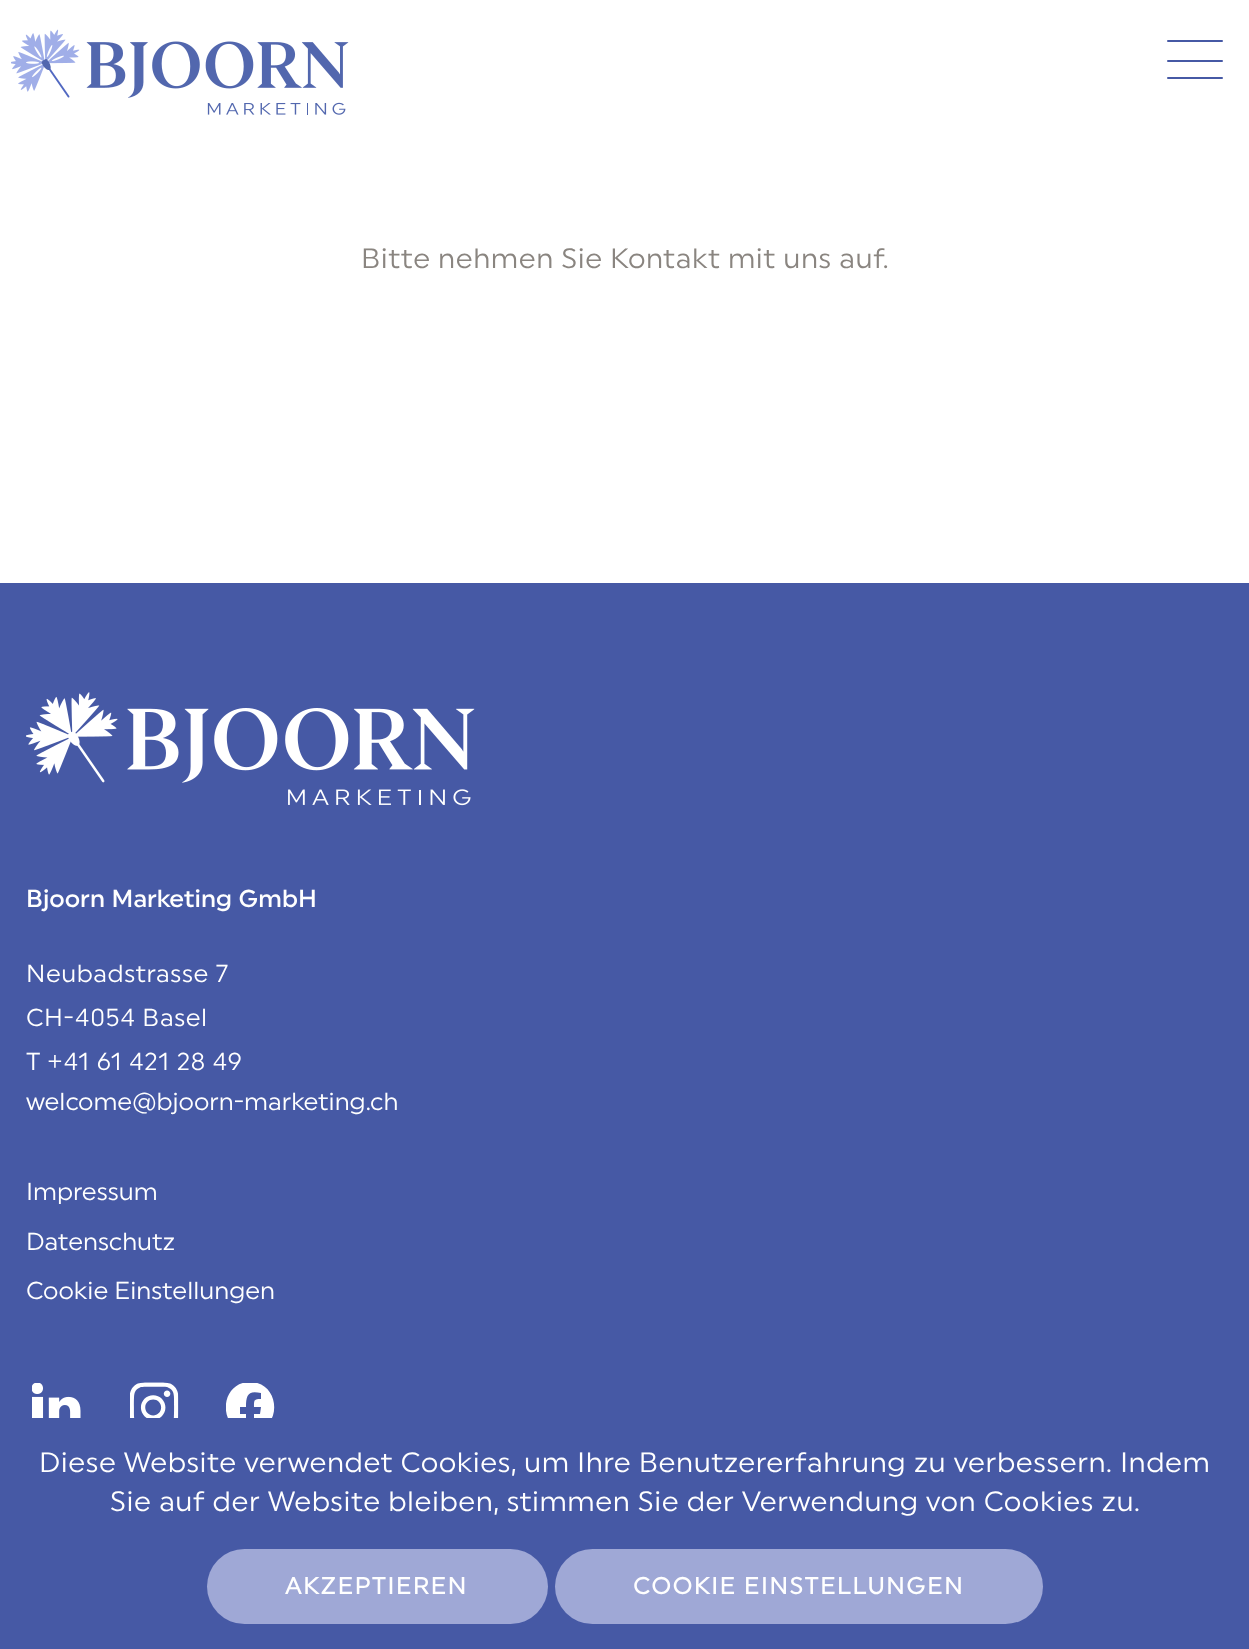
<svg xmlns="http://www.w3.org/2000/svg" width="1249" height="1649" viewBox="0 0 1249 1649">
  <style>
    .t1 { font: 28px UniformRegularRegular; letter-spacing: 0.53px; fill: #8a8580; }
    .t2 { font: 500 24.5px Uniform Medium; fill: #fff; }
    .t3 { font: 24.5px UniformRegularRegular; letter-spacing: 0.53px; fill: #fff; }
    .t4 { font: 24.5px UniformRegularRegular; fill: #fff; }
    .t5 { font: 28px UniformRegularRegular; letter-spacing: 0.53px; fill: #fff; }
    .t6 { font: bold 23.3px UniformRegularRegular; letter-spacing: 1.75px; fill: #fff; }
  </style>
  <defs>
    <clipPath id="clip1"><rect x="226" y="1383" width="49" height="49"/></clipPath>
  </defs>
  <rect width="100%" height="100%" fill="#fff"/>
  <image x="11" y="29" width="338" height="86" href="images/1.png"/>
  <rect x="1167" y="40" width="56" height="2" rx="1" fill="#4659a5"/>
  <rect x="1167" y="60" width="56" height="2" rx="1" fill="#4659a5"/>
  <rect x="1167" y="77" width="56" height="2" rx="1" fill="#4659a5"/>
  <text x="361" y="268" class="t1">Bitte nehmen Sie Kontakt</text>
  <text x="728" y="268" class="t1">mit uns auf.</text>
  <rect x="0" y="583" width="1249" height="835" fill="#4659a5"/>
  <image x="26" y="692" width="449" height="114" href="images/2.png"/>
  <text x="26" y="907" class="t2">Bjoorn Marketing GmbH</text>
  <text x="26" y="982" class="t3">Neubadstrasse 7</text>
  <text x="26" y="1026" class="t3">CH-4054 Basel</text>
  <text x="26" y="1070" class="t3">T +41 61 421 28 49</text>
  <text x="26" y="1110" class="t4">welcome@bjoorn-marketing.ch</text>
  <text x="26" y="1200" class="t4">Impressum</text>
  <text x="26" y="1250" class="t4">Datenschutz</text>
  <text x="26" y="1299" class="t4">Cookie Einstellungen</text>
  <image x="32" y="1383" width="49" height="35" href="images/3.png"/>
  <image x="130" y="1382" width="49" height="36" href="images/4.png"/>
  <g clip-path="url(#clip1)">
    <path d="M250 1382C220 1382 217 1427 246 1432V1414H240V1407H246C246 1395 248 1390 261 1393V1399C254 1399 254 1400 254 1407H261L260 1414H254V1432C283 1427 280 1382 250 1382" fill="#fff" fill-rule="evenodd"/>
  </g>
  <rect x="0" y="1418" width="1249" height="231" fill="#4659a5"/>
  <text x="39" y="1472" class="t5">Diese Website verwendet Cookies, um Ihre Benutzererfahrung zu verbessern. Indem</text>
  <text x="110" y="1511" class="t5">Sie auf der Website bleiben, stimmen Sie der Verwendung von Cookies zu.</text>
  <rect x="207" y="1549" width="341" height="75" rx="37.5" fill="#9fa8d6"/>
  <text x="285" y="1594" class="t6">AKZEPTIEREN</text>
  <rect x="555" y="1549" width="488" height="75" rx="37.5" fill="#9fa8d6"/>
  <text x="633" y="1594" class="t6">COOKIE EINSTELLUNGEN</text>
</svg>
